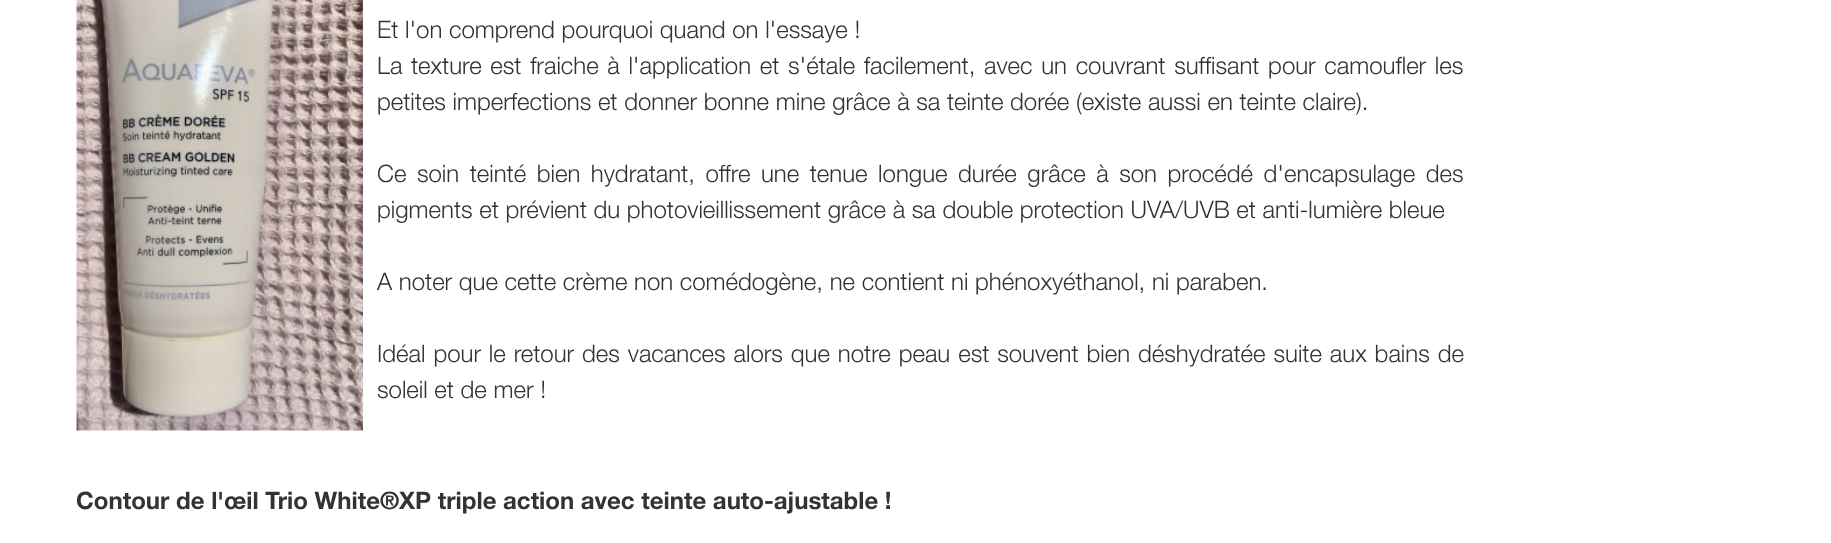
<svg xmlns="http://www.w3.org/2000/svg" width="1831" height="543" viewBox="0 0 1831 543">
  <style>
    .t1 { font: 300 24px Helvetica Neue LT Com; fill: #333; }
    .t2 { font: bold 24px Helvetica Neue LT Com; fill: #333; }
  </style>
  <rect width="100%" height="100%" fill="#fff"/>
  <image x="76" y="0" width="287" height="431" href="images/1.png"/>
  <text x="377" y="38" class="t1">Et l'on comprend pourquoi quand on l'essaye !</text>
  <text x="377" y="74" word-spacing="2" class="t1">La texture est fraiche à l'application et s'étale facilement, avec un couvrant suffisant pour camoufler les</text>
  <text x="377" y="110" class="t1">petites imperfections et donner bonne mine grâce à sa teinte dorée (existe aussi en teinte claire).</text>
  <text x="377" y="182" word-spacing="3.9" class="t1">Ce soin teinté bien hydratant, offre une tenue longue durée grâce à son procédé d'encapsulage des</text>
  <text x="377" y="218" class="t1">pigments et prévient du photovieillissement grâce à sa double protection UVA/UVB et anti-lumière bleue</text>
  <text x="377" y="290" class="t1">A noter que cette crème non comédogène, ne contient ni phénoxyéthanol, ni paraben.</text>
  <text x="377" y="362" word-spacing="1.25" class="t1">Idéal pour le retour des vacances alors que notre peau est souvent bien déshydratée suite aux bains de</text>
  <text x="377" y="398" class="t1">soleil et de mer !</text>
  <text x="76" y="509" class="t2">Contour de l'œil Trio White®XP triple action avec teinte auto-ajustable !</text>
</svg>
